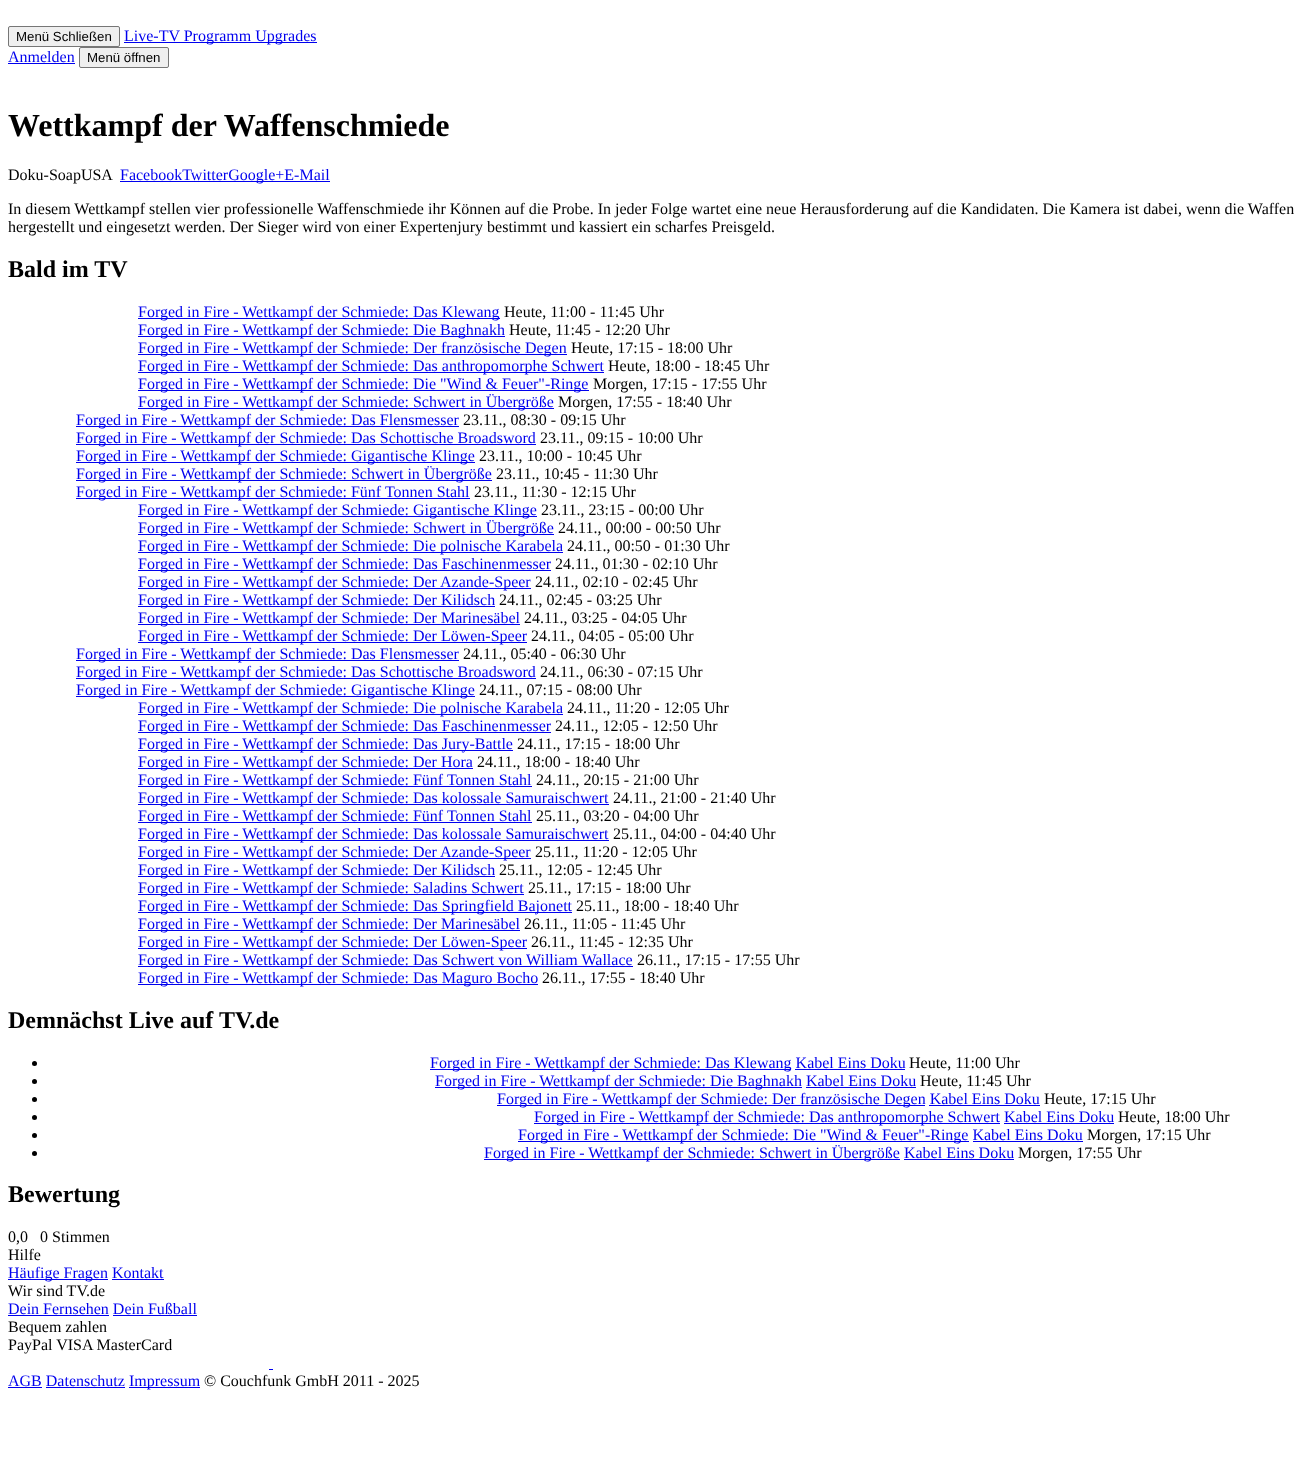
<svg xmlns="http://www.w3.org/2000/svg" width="1305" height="1474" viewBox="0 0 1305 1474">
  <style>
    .t1 { font: 13.25px Liberation Sans; fill: #000; }
    .t2 { font: 16px Liberation Serif; fill: #00e; }
    .t3 { font: bold 32px Liberation Serif; fill: #000; }
    .t4 { font: 16px Liberation Serif; fill: #000; }
    .t5 { font: bold 24px Liberation Serif; fill: #000; }
  </style>
  <rect width="100%" height="100%" fill="#fff"/>
  <rect x="8.5" y="26.5" width="111" height="20" rx="1.5" fill="#efefef" stroke="#767676"/>
  <text x="16" y="41" class="t1">Menü Schließen</text>
  <rect x="124" y="42" width="193" height="1" fill="#00e"/>
  <text x="124" y="41" class="t2">Live-TV Programm Upgrades</text>
  <text x="8" y="62" class="t2">Anmelden</text>
  <rect x="8" y="63" width="67" height="1" fill="#00e"/>
  <rect x="79.5" y="47.5" width="89" height="20" rx="1.5" fill="#efefef" stroke="#767676"/>
  <text x="87" y="62" class="t1">Menü öffnen</text>
  <text x="8" y="136" class="t3">Wettkampf der Waffenschmiede</text>
  <text x="8" y="180" class="t4">Doku-SoapUSA</text>
  <rect x="120" y="181" width="210" height="1" fill="#00e"/>
  <text x="120" y="180" class="t2">FacebookTwitterGoogle+E-Mail</text>
  <text x="8" y="214" class="t4">In diesem Wettkampf stellen vier professionelle Waffenschmiede ihr Können auf die Probe. In jeder Folge wartet eine neue Herausforderung auf die Kandidaten. Die Kamera ist dabei, wenn die Waffen</text>
  <text x="8" y="232" class="t4">hergestellt und eingesetzt werden. Der Sieger wird von einer Expertenjury bestimmt und kassiert ein scharfes Preisgeld.</text>
  <text x="8" y="277" class="t5">Bald im TV</text>
  <rect x="138" y="318" width="362" height="1" fill="#00e"/>
  <text x="138" y="317" class="t2">Forged in Fire - Wettkampf der Schmiede: Das Klewang</text>
  <text x="504" y="317" class="t4">Heute, 11:00 - 11:45 Uhr</text>
  <rect x="138" y="336" width="367" height="1" fill="#00e"/>
  <text x="138" y="335" class="t2">Forged in Fire - Wettkampf der Schmiede: Die Baghnakh</text>
  <text x="509" y="335" class="t4">Heute, 11:45 - 12:20 Uhr</text>
  <rect x="138" y="354" width="429" height="1" fill="#00e"/>
  <text x="138" y="353" class="t2">Forged in Fire - Wettkampf der Schmiede: Der französische Degen</text>
  <text x="571" y="353" class="t4">Heute, 17:15 - 18:00 Uhr</text>
  <rect x="138" y="372" width="466" height="1" fill="#00e"/>
  <text x="138" y="371" class="t2">Forged in Fire - Wettkampf der Schmiede: Das anthropomorphe Schwert</text>
  <text x="608" y="371" class="t4">Heute, 18:00 - 18:45 Uhr</text>
  <rect x="138" y="390" width="451" height="1" fill="#00e"/>
  <text x="138" y="389" class="t2">Forged in Fire - Wettkampf der Schmiede: Die "Wind &amp; Feuer"-Ringe</text>
  <text x="593" y="389" class="t4">Morgen, 17:15 - 17:55 Uhr</text>
  <rect x="138" y="408" width="416" height="1" fill="#00e"/>
  <text x="138" y="407" class="t2">Forged in Fire - Wettkampf der Schmiede: Schwert in Übergröße</text>
  <text x="558" y="407" class="t4">Morgen, 17:55 - 18:40 Uhr</text>
  <rect x="76" y="426" width="383" height="1" fill="#00e"/>
  <text x="76" y="425" class="t2">Forged in Fire - Wettkampf der Schmiede: Das Flensmesser</text>
  <text x="463" y="425" class="t4">23.11., 08:30 - 09:15 Uhr</text>
  <rect x="76" y="444" width="460" height="1" fill="#00e"/>
  <text x="76" y="443" class="t2">Forged in Fire - Wettkampf der Schmiede: Das Schottische Broadsword</text>
  <text x="540" y="443" class="t4">23.11., 09:15 - 10:00 Uhr</text>
  <rect x="76" y="462" width="399" height="1" fill="#00e"/>
  <text x="76" y="461" class="t2">Forged in Fire - Wettkampf der Schmiede: Gigantische Klinge</text>
  <text x="479" y="461" class="t4">23.11., 10:00 - 10:45 Uhr</text>
  <rect x="76" y="480" width="416" height="1" fill="#00e"/>
  <text x="76" y="479" class="t2">Forged in Fire - Wettkampf der Schmiede: Schwert in Übergröße</text>
  <text x="496" y="479" class="t4">23.11., 10:45 - 11:30 Uhr</text>
  <rect x="76" y="498" width="394" height="1" fill="#00e"/>
  <text x="76" y="497" class="t2">Forged in Fire - Wettkampf der Schmiede: Fünf Tonnen Stahl</text>
  <text x="474" y="497" class="t4">23.11., 11:30 - 12:15 Uhr</text>
  <rect x="138" y="516" width="399" height="1" fill="#00e"/>
  <text x="138" y="515" class="t2">Forged in Fire - Wettkampf der Schmiede: Gigantische Klinge</text>
  <text x="541" y="515" class="t4">23.11., 23:15 - 00:00 Uhr</text>
  <rect x="138" y="534" width="416" height="1" fill="#00e"/>
  <text x="138" y="533" class="t2">Forged in Fire - Wettkampf der Schmiede: Schwert in Übergröße</text>
  <text x="558" y="533" class="t4">24.11., 00:00 - 00:50 Uhr</text>
  <rect x="138" y="552" width="425" height="1" fill="#00e"/>
  <text x="138" y="551" class="t2">Forged in Fire - Wettkampf der Schmiede: Die polnische Karabela</text>
  <text x="567" y="551" class="t4">24.11., 00:50 - 01:30 Uhr</text>
  <rect x="138" y="570" width="413" height="1" fill="#00e"/>
  <text x="138" y="569" class="t2">Forged in Fire - Wettkampf der Schmiede: Das Faschinenmesser</text>
  <text x="555" y="569" class="t4">24.11., 01:30 - 02:10 Uhr</text>
  <rect x="138" y="588" width="393" height="1" fill="#00e"/>
  <text x="138" y="587" class="t2">Forged in Fire - Wettkampf der Schmiede: Der Azande-Speer</text>
  <text x="535" y="587" class="t4">24.11., 02:10 - 02:45 Uhr</text>
  <rect x="138" y="606" width="357" height="1" fill="#00e"/>
  <text x="138" y="605" class="t2">Forged in Fire - Wettkampf der Schmiede: Der Kilidsch</text>
  <text x="499" y="605" class="t4">24.11., 02:45 - 03:25 Uhr</text>
  <rect x="138" y="624" width="382" height="1" fill="#00e"/>
  <text x="138" y="623" class="t2">Forged in Fire - Wettkampf der Schmiede: Der Marinesäbel</text>
  <text x="524" y="623" class="t4">24.11., 03:25 - 04:05 Uhr</text>
  <rect x="138" y="642" width="389" height="1" fill="#00e"/>
  <text x="138" y="641" class="t2">Forged in Fire - Wettkampf der Schmiede: Der Löwen-Speer</text>
  <text x="531" y="641" class="t4">24.11., 04:05 - 05:00 Uhr</text>
  <rect x="76" y="660" width="383" height="1" fill="#00e"/>
  <text x="76" y="659" class="t2">Forged in Fire - Wettkampf der Schmiede: Das Flensmesser</text>
  <text x="463" y="659" class="t4">24.11., 05:40 - 06:30 Uhr</text>
  <rect x="76" y="678" width="460" height="1" fill="#00e"/>
  <text x="76" y="677" class="t2">Forged in Fire - Wettkampf der Schmiede: Das Schottische Broadsword</text>
  <text x="540" y="677" class="t4">24.11., 06:30 - 07:15 Uhr</text>
  <rect x="76" y="696" width="399" height="1" fill="#00e"/>
  <text x="76" y="695" class="t2">Forged in Fire - Wettkampf der Schmiede: Gigantische Klinge</text>
  <text x="479" y="695" class="t4">24.11., 07:15 - 08:00 Uhr</text>
  <rect x="138" y="714" width="425" height="1" fill="#00e"/>
  <text x="138" y="713" class="t2">Forged in Fire - Wettkampf der Schmiede: Die polnische Karabela</text>
  <text x="567" y="713" class="t4">24.11., 11:20 - 12:05 Uhr</text>
  <rect x="138" y="732" width="413" height="1" fill="#00e"/>
  <text x="138" y="731" class="t2">Forged in Fire - Wettkampf der Schmiede: Das Faschinenmesser</text>
  <text x="555" y="731" class="t4">24.11., 12:05 - 12:50 Uhr</text>
  <rect x="138" y="750" width="375" height="1" fill="#00e"/>
  <text x="138" y="749" class="t2">Forged in Fire - Wettkampf der Schmiede: Das Jury-Battle</text>
  <text x="517" y="749" class="t4">24.11., 17:15 - 18:00 Uhr</text>
  <rect x="138" y="768" width="335" height="1" fill="#00e"/>
  <text x="138" y="767" class="t2">Forged in Fire - Wettkampf der Schmiede: Der Hora</text>
  <text x="477" y="767" class="t4">24.11., 18:00 - 18:40 Uhr</text>
  <rect x="138" y="786" width="394" height="1" fill="#00e"/>
  <text x="138" y="785" class="t2">Forged in Fire - Wettkampf der Schmiede: Fünf Tonnen Stahl</text>
  <text x="536" y="785" class="t4">24.11., 20:15 - 21:00 Uhr</text>
  <rect x="138" y="804" width="471" height="1" fill="#00e"/>
  <text x="138" y="803" class="t2">Forged in Fire - Wettkampf der Schmiede: Das kolossale Samuraischwert</text>
  <text x="613" y="803" class="t4">24.11., 21:00 - 21:40 Uhr</text>
  <rect x="138" y="822" width="394" height="1" fill="#00e"/>
  <text x="138" y="821" class="t2">Forged in Fire - Wettkampf der Schmiede: Fünf Tonnen Stahl</text>
  <text x="536" y="821" class="t4">25.11., 03:20 - 04:00 Uhr</text>
  <rect x="138" y="840" width="471" height="1" fill="#00e"/>
  <text x="138" y="839" class="t2">Forged in Fire - Wettkampf der Schmiede: Das kolossale Samuraischwert</text>
  <text x="613" y="839" class="t4">25.11., 04:00 - 04:40 Uhr</text>
  <rect x="138" y="858" width="393" height="1" fill="#00e"/>
  <text x="138" y="857" class="t2">Forged in Fire - Wettkampf der Schmiede: Der Azande-Speer</text>
  <text x="535" y="857" class="t4">25.11., 11:20 - 12:05 Uhr</text>
  <rect x="138" y="876" width="357" height="1" fill="#00e"/>
  <text x="138" y="875" class="t2">Forged in Fire - Wettkampf der Schmiede: Der Kilidsch</text>
  <text x="499" y="875" class="t4">25.11., 12:05 - 12:45 Uhr</text>
  <rect x="138" y="894" width="386" height="1" fill="#00e"/>
  <text x="138" y="893" class="t2">Forged in Fire - Wettkampf der Schmiede: Saladins Schwert</text>
  <text x="528" y="893" class="t4">25.11., 17:15 - 18:00 Uhr</text>
  <rect x="138" y="912" width="434" height="1" fill="#00e"/>
  <text x="138" y="911" class="t2">Forged in Fire - Wettkampf der Schmiede: Das Springfield Bajonett</text>
  <text x="576" y="911" class="t4">25.11., 18:00 - 18:40 Uhr</text>
  <rect x="138" y="930" width="382" height="1" fill="#00e"/>
  <text x="138" y="929" class="t2">Forged in Fire - Wettkampf der Schmiede: Der Marinesäbel</text>
  <text x="524" y="929" class="t4">26.11., 11:05 - 11:45 Uhr</text>
  <rect x="138" y="948" width="389" height="1" fill="#00e"/>
  <text x="138" y="947" class="t2">Forged in Fire - Wettkampf der Schmiede: Der Löwen-Speer</text>
  <text x="531" y="947" class="t4">26.11., 11:45 - 12:35 Uhr</text>
  <rect x="138" y="966" width="495" height="1" fill="#00e"/>
  <text x="138" y="965" class="t2">Forged in Fire - Wettkampf der Schmiede: Das Schwert von William Wallace</text>
  <text x="637" y="965" class="t4">26.11., 17:15 - 17:55 Uhr</text>
  <rect x="138" y="984" width="400" height="1" fill="#00e"/>
  <text x="138" y="983" class="t2">Forged in Fire - Wettkampf der Schmiede: Das Maguro Bocho</text>
  <text x="542" y="983" class="t4">26.11., 17:55 - 18:40 Uhr</text>
  <text x="8" y="1028" class="t5">Demnächst Live auf TV.de</text>
  <circle cx="34.5" cy="1063.5" r="2.5" fill="#000"/>
  <rect x="430" y="1069" width="361" height="1" fill="#00e"/>
  <text x="430" y="1068" class="t2">Forged in Fire - Wettkampf der Schmiede: Das Klewang Kabel Eins Doku</text>
  <text x="909" y="1068" class="t4">Heute, 11:00 Uhr</text>
  <rect x="795" y="1069" width="110" height="1" fill="#00e"/>
  <circle cx="34.5" cy="1081.5" r="2.5" fill="#000"/>
  <rect x="435" y="1087" width="367" height="1" fill="#00e"/>
  <text x="435" y="1086" class="t2">Forged in Fire - Wettkampf der Schmiede: Die Baghnakh Kabel Eins Doku</text>
  <text x="920" y="1086" class="t4">Heute, 11:45 Uhr</text>
  <rect x="806" y="1087" width="110" height="1" fill="#00e"/>
  <circle cx="34.5" cy="1099.5" r="2.5" fill="#000"/>
  <rect x="497" y="1105" width="428" height="1" fill="#00e"/>
  <text x="497" y="1104" class="t2">Forged in Fire - Wettkampf der Schmiede: Der französische Degen Kabel Eins Doku</text>
  <text x="1044" y="1104" class="t4">Heute, 17:15 Uhr</text>
  <rect x="929" y="1105" width="111" height="1" fill="#00e"/>
  <circle cx="34.5" cy="1117.5" r="2.5" fill="#000"/>
  <rect x="534" y="1123" width="466" height="1" fill="#00e"/>
  <text x="534" y="1122" class="t2">Forged in Fire - Wettkampf der Schmiede: Das anthropomorphe Schwert Kabel Eins Doku</text>
  <text x="1118" y="1122" class="t4">Heute, 18:00 Uhr</text>
  <rect x="1004" y="1123" width="110" height="1" fill="#00e"/>
  <circle cx="34.5" cy="1135.5" r="2.5" fill="#000"/>
  <rect x="518" y="1141" width="451" height="1" fill="#00e"/>
  <text x="518" y="1140" class="t2">Forged in Fire - Wettkampf der Schmiede: Die "Wind &amp; Feuer"-Ringe Kabel Eins Doku</text>
  <text x="1087" y="1140" class="t4">Morgen, 17:15 Uhr</text>
  <rect x="973" y="1141" width="110" height="1" fill="#00e"/>
  <circle cx="34.5" cy="1153.5" r="2.5" fill="#000"/>
  <rect x="484" y="1159" width="416" height="1" fill="#00e"/>
  <text x="484" y="1158" class="t2">Forged in Fire - Wettkampf der Schmiede: Schwert in Übergröße Kabel Eins Doku</text>
  <text x="1018" y="1158" class="t4">Morgen, 17:55 Uhr</text>
  <rect x="904" y="1159" width="110" height="1" fill="#00e"/>
  <text x="8" y="1202" class="t5">Bewertung</text>
  <text x="8" y="1242" class="t4">0,0</text>
  <text x="40" y="1242" class="t4">0 Stimmen</text>
  <text x="8" y="1260" class="t4">Hilfe</text>
  <rect x="8" y="1279" width="100" height="1" fill="#00e"/>
  <text x="8" y="1278" class="t2">Häufige Fragen Kontakt</text>
  <rect x="112" y="1279" width="52" height="1" fill="#00e"/>
  <text x="8" y="1296" class="t4">Wir sind TV.de</text>
  <text x="8" y="1314" class="t2">Dein Fernsehen Dein Fußball</text>
  <rect x="8" y="1315" width="101" height="1" fill="#00e"/>
  <rect x="113" y="1315" width="84" height="1" fill="#00e"/>
  <text x="8" y="1332" class="t4">Bequem zahlen</text>
  <text x="8" y="1350" class="t4">PayPal VISA MasterCard</text>
  <rect x="269" y="1369" width="4" height="1" fill="#00e"/>
  <text x="8" y="1386" class="t2">AGB Datenschutz</text>
  <rect x="8" y="1387" width="34" height="1" fill="#00e"/>
  <rect x="129" y="1387" width="71" height="1" fill="#00e"/>
  <text x="129" y="1386" class="t2">Impressum</text>
  <text x="204" y="1386" class="t4">© Couchfunk GmbH 2011 - 2025</text>
  <rect x="46" y="1387" width="79" height="1" fill="#00e"/>
</svg>
